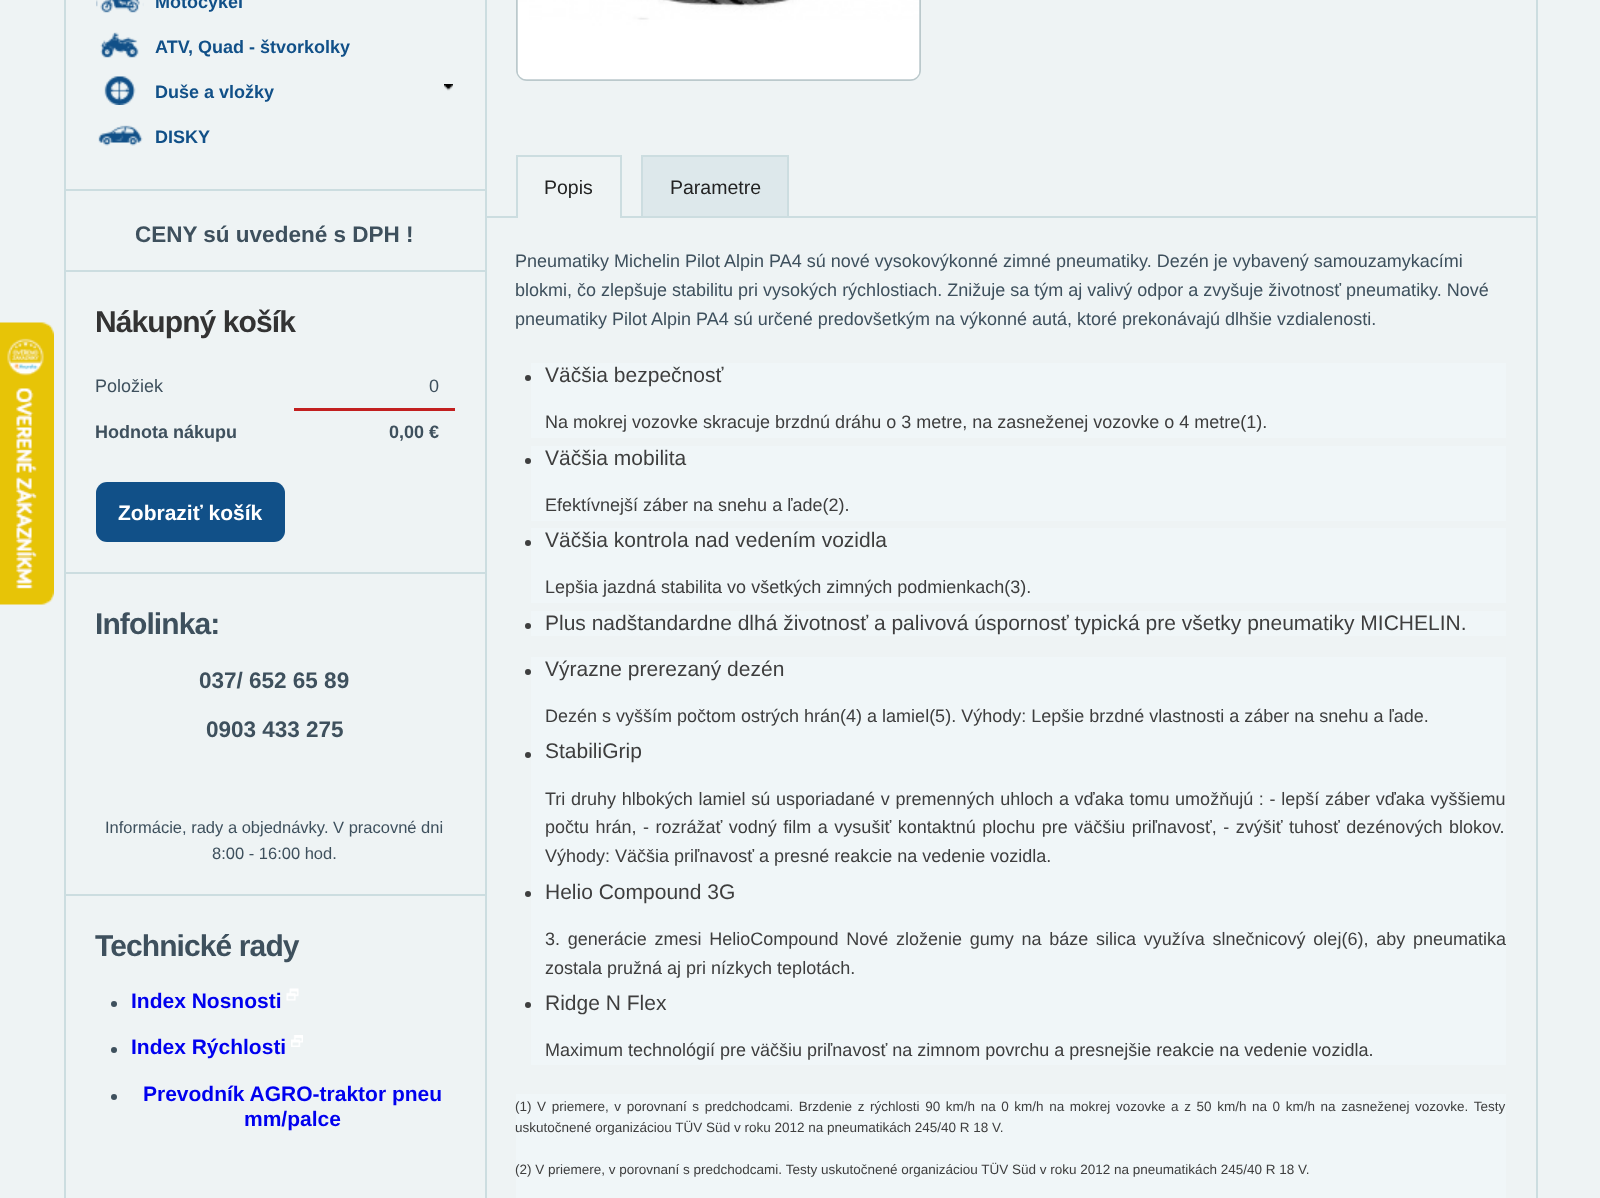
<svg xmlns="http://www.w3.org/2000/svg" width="1600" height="1198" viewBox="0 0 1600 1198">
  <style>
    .t1 { font: bold 18px Liberation Sans; fill: #115088; }
    .t2 { font: bold 22.5px Liberation Sans; fill: #3e505d; }
    .t3 { font: bold 30px Liberation Sans; letter-spacing: -0.9px; fill: #333; }
    .t4 { font: 18px Liberation Sans; fill: #3e505d; }
    .t5 { font: bold 18px Liberation Sans; fill: #3e505d; }
    .t6 { font: bold 21px Liberation Sans; fill: #fff; }
    .t7 { font: bold 30px Liberation Sans; letter-spacing: -0.9px; fill: #3e505d; }
    .t8 { font: 16.5px Liberation Sans; fill: #3e505d; }
    .t9 { font: bold 21px Liberation Sans; fill: #00e; }
    .t10 { font: 19.5px Liberation Sans; fill: #222; }
    .t11 { font: 21px Liberation Sans; fill: #3e3e3e; }
    .t12 { font: 18px Liberation Sans; fill: #3e3e3e; }
    .t13 { font: 13.5px Liberation Sans; fill: #3e3e3e; }
  </style>
  <rect width="100%" height="100%" fill="#eef3f4"/>
  <image x="0" y="322" width="54" height="283" href="images/1.png"/>
  <path d="M75-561H484V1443H75C69 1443 64 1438 64 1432V-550C64-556 69-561 75-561ZM75-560H484V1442H75C70 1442 66 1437 66 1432V-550C66-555 70-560 75-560Z" fill="#ccdde0" fill-rule="evenodd"/>
  <image x="96" y="0" width="48" height="13" href="images/2.png"/>
  <text x="155" y="8" class="t1">Motocykel</text>
  <image x="100" y="32" width="39" height="26" href="images/3.png"/>
  <text x="155" y="53" class="t1">ATV, Quad - štvorkolky</text>
  <image x="104" y="76" width="32" height="29" href="images/4.png"/>
  <text x="155" y="98" class="t1">Duše a vložky</text>
  <image x="444" y="84" width="9" height="7" href="images/5.png"/>
  <image x="98" y="125" width="45" height="21" href="images/6.png"/>
  <text x="155" y="143" class="t1">DISKY</text>
  <rect x="66" y="189" width="419" height="2" fill="#ccdde0"/>
  <text x="135" y="242" class="t2">CENY sú uvedené s DPH !</text>
  <rect x="66" y="270" width="419" height="2" fill="#ccdde0"/>
  <text x="95" y="332" class="t3">Nákupný košík</text>
  <text x="95" y="392" class="t4">Položiek</text>
  <text x="429" y="392" class="t4">0</text>
  <text x="95" y="438" class="t5">Hodnota nákupu</text>
  <rect x="294" y="408" width="161" height="3" fill="#c21f1f"/>
  <text x="389" y="438" class="t5">0,00 €</text>
  <rect x="96" y="482" width="189" height="60" rx="11" fill="#115088"/>
  <text x="118" y="520" class="t6">Zobraziť košík</text>
  <rect x="66" y="572" width="419" height="2" fill="#ccdde0"/>
  <text x="95" y="634" class="t7">Infolinka:</text>
  <text x="199" y="688" class="t2">037/ 652 65 89</text>
  <text x="206" y="737" class="t2">0903 433 275</text>
  <text x="105" y="833" class="t8">Informácie, rady a objednávky. V pracovné dni</text>
  <text x="212" y="859" class="t8">8:00 - 16:00 hod.</text>
  <rect x="66" y="894" width="419" height="2" fill="#ccdde0"/>
  <text x="95" y="956" class="t7">Technické rady</text>
  <circle cx="114" cy="1004" r="3" fill="#3e505d"/>
  <text x="131" y="1008" class="t9">Index Nosnosti</text>
  <image x="286" y="988" width="13" height="13" href="images/7.png"/>
  <circle cx="114" cy="1050" r="3" fill="#3e505d"/>
  <text x="131" y="1054" class="t9">Index Rýchlosti</text>
  <image x="291" y="1035" width="12" height="12" href="images/8.png"/>
  <circle cx="114" cy="1097" r="3" fill="#3e505d"/>
  <text x="143" y="1101" class="t9">Prevodník AGRO-traktor pneu</text>
  <text x="244" y="1126" class="t9">mm/palce</text>
  <rect x="486" y="-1" width="1051" height="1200" fill="none" stroke="#ccdde0" stroke-width="2"/>
  <rect x="517" y="-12" width="403" height="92" rx="10" fill="none" stroke="#bbc9cc" stroke-width="2"/>
  <image x="517" y="0" width="403" height="80" href="images/9.png"/>
  <rect x="486" y="216" width="1050" height="2" fill="#ccdde0"/>
  <rect x="518" y="216" width="102" height="2" fill="#eef3f4"/>
  <rect x="516" y="155" width="105" height="2" fill="#ccdde0"/>
  <rect x="620" y="155" width="2" height="63" fill="#ccdde0"/>
  <rect x="516" y="155" width="2" height="63" fill="#ccdde0"/>
  <text x="544" y="194" class="t10">Popis</text>
  <rect x="642" y="156" width="146" height="61" fill="#dde8eb" stroke="#ccdde0" stroke-width="2"/>
  <text x="670" y="194" class="t10">Parametre</text>
  <text x="515" y="267" class="t4">Pneumatiky Michelin Pilot Alpin PA4 sú nové vysokovýkonné zimné pneumatiky. Dezén je vybavený samouzamykacími</text>
  <text x="515" y="296" class="t4">blokmi, čo zlepšuje stabilitu pri vysokých rýchlostiach. Znižuje sa tým aj valivý odpor a zvyšuje životnosť pneumatiky. Nové</text>
  <text x="515" y="325" class="t4">pneumatiky Pilot Alpin PA4 sú určené predovšetkým na výkonné autá, ktoré prekonávajú dlhšie vzdialenosti.</text>
  <rect x="531" y="363" width="975" height="75" fill="#f0f6f8"/>
  <circle cx="528" cy="378" r="3" fill="#3e3e3e"/>
  <text x="545" y="382" class="t11">Väčšia bezpečnosť</text>
  <text x="545" y="428" class="t12">Na mokrej vozovke skracuje brzdnú dráhu o 3 metre, na zasneženej vozovke o 4 metre(1).</text>
  <rect x="531" y="446" width="975" height="75" fill="#f0f6f8"/>
  <circle cx="528" cy="461" r="3" fill="#3e3e3e"/>
  <text x="545" y="465" class="t11">Väčšia mobilita</text>
  <text x="545" y="511" class="t12">Efektívnejší záber na snehu a ľade(2).</text>
  <rect x="531" y="528" width="975" height="75" fill="#f0f6f8"/>
  <circle cx="528" cy="543" r="3" fill="#3e3e3e"/>
  <text x="545" y="547" class="t11">Väčšia kontrola nad vedením vozidla</text>
  <text x="545" y="593" class="t12">Lepšia jazdná stabilita vo všetkých zimných podmienkach(3).</text>
  <rect x="531" y="611" width="975" height="25" fill="#f0f6f8"/>
  <circle cx="528" cy="626" r="3" fill="#3e3e3e"/>
  <text x="545" y="630" class="t11">Plus nadštandardne dlhá životnosť a palivová úspornosť typická pre všetky pneumatiky MICHELIN.</text>
  <rect x="531" y="657" width="975" height="408" fill="#f0f6f8"/>
  <circle cx="528" cy="672" r="3" fill="#3e3e3e"/>
  <text x="545" y="676" class="t11">Výrazne prerezaný dezén</text>
  <text x="545" y="722" class="t12">Dezén s vyšším počtom ostrých hrán(4) a lamiel(5). Výhody: Lepšie brzdné vlastnosti a záber na snehu a ľade.</text>
  <circle cx="528" cy="755" r="3" fill="#3e3e3e"/>
  <text x="545" y="758" class="t11">StabiliGrip</text>
  <text x="545" y="805" word-spacing="0.7" class="t12">Tri druhy hlbokých lamiel sú usporiadané v premenných uhloch a vďaka tomu umožňujú : - lepší záber vďaka vyššiemu</text>
  <text x="545" y="833" word-spacing="1.5" class="t12">počtu hrán, - rozrážať vodný film a vysušiť kontaktnú plochu pre väčšiu priľnavosť, - zvýšiť tuhosť dezénových blokov.</text>
  <text x="545" y="862" class="t12">Výhody: Väčšia priľnavosť a presné reakcie na vedenie vozidla.</text>
  <circle cx="528" cy="894" r="3" fill="#3e3e3e"/>
  <text x="545" y="899" class="t11">Helio Compound 3G</text>
  <text x="545" y="945" word-spacing="2.75" class="t12">3. generácie zmesi HelioCompound Nové zloženie gumy na báze silica využíva slnečnicový olej(6), aby pneumatika</text>
  <text x="545" y="974" class="t12">zostala pružná aj pri nízkych teplotách.</text>
  <circle cx="528" cy="1005" r="3" fill="#3e3e3e"/>
  <text x="545" y="1010" class="t11">Ridge N Flex</text>
  <text x="545" y="1056" class="t12">Maximum technológií pre väčšiu priľnavosť na zimnom povrchu a presnejšie reakcie na vedenie vozidla.</text>
  <rect x="516" y="1094" width="990" height="104" fill="#f0f6f8"/>
  <text x="515" y="1111" word-spacing="1.85" class="t13">(1) V priemere, v porovnaní s predchodcami. Brzdenie z rýchlosti 90 km/h na 0 km/h na mokrej vozovke a z 50 km/h na 0 km/h na zasneženej vozovke. Testy</text>
  <text x="515" y="1132" class="t13">uskutočnené organizáciou TÜV Süd v roku 2012 na pneumatikách 245/40 R 18 V.</text>
  <text x="515" y="1174" class="t13">(2) V priemere, v porovnaní s predchodcami. Testy uskutočnené organizáciou TÜV Süd v roku 2012 na pneumatikách 245/40 R 18 V.</text>
</svg>
